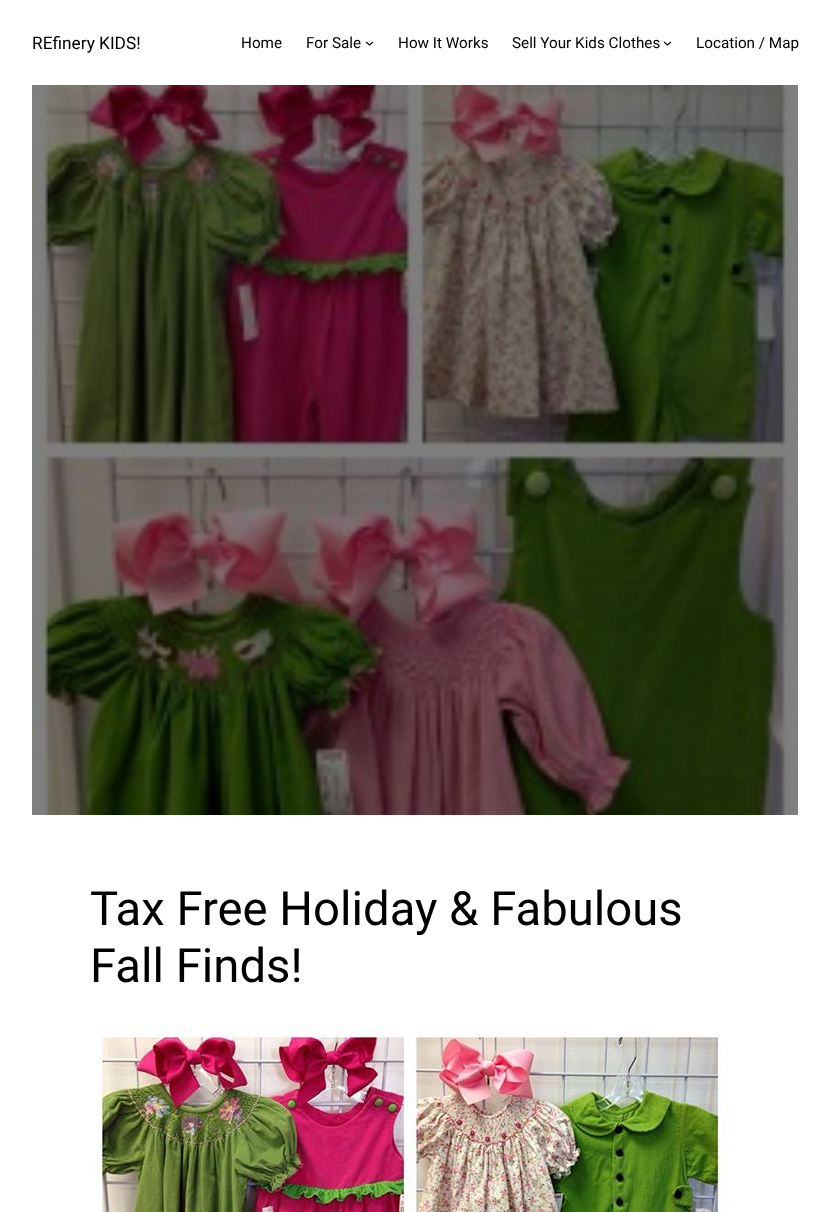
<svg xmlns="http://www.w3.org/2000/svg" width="830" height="1212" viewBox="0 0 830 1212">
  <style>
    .t1 { font: 17.25px Roboto; fill: #000; }
    .t2 { font: 15.25px Roboto; fill: #000; }
    .t3 { font: 47.25px Roboto; fill: #000; }
  </style>
  <rect width="100%" height="100%" fill="#fff"/>
  <text x="32" y="49" class="t1">REfinery KIDS!</text>
  <text x="241" y="48" class="t2">Home</text>
  <text x="306" y="48" class="t2">For Sale</text>
  <path d="M366 42L369.5 45L373 42" fill="none" stroke="#000" stroke-width="1.1"/>
  <text x="398" y="48" class="t2">How It Works</text>
  <text x="512" y="48" class="t2">Sell Your Kids Clothes</text>
  <path d="M664 42L667.5 45L671 42" fill="none" stroke="#000" stroke-width="1.1"/>
  <text x="696" y="48" class="t2">Location / Map</text>
  <image x="32" y="85" width="766" height="730" href="images/1.png"/>
  <text x="90" y="925" class="t3">Tax Free Holiday &amp; Fabulous</text>
  <text x="90" y="982" class="t3">Fall Finds!</text>
  <image x="90" y="1025" width="640" height="187" href="images/2.png"/>
</svg>
